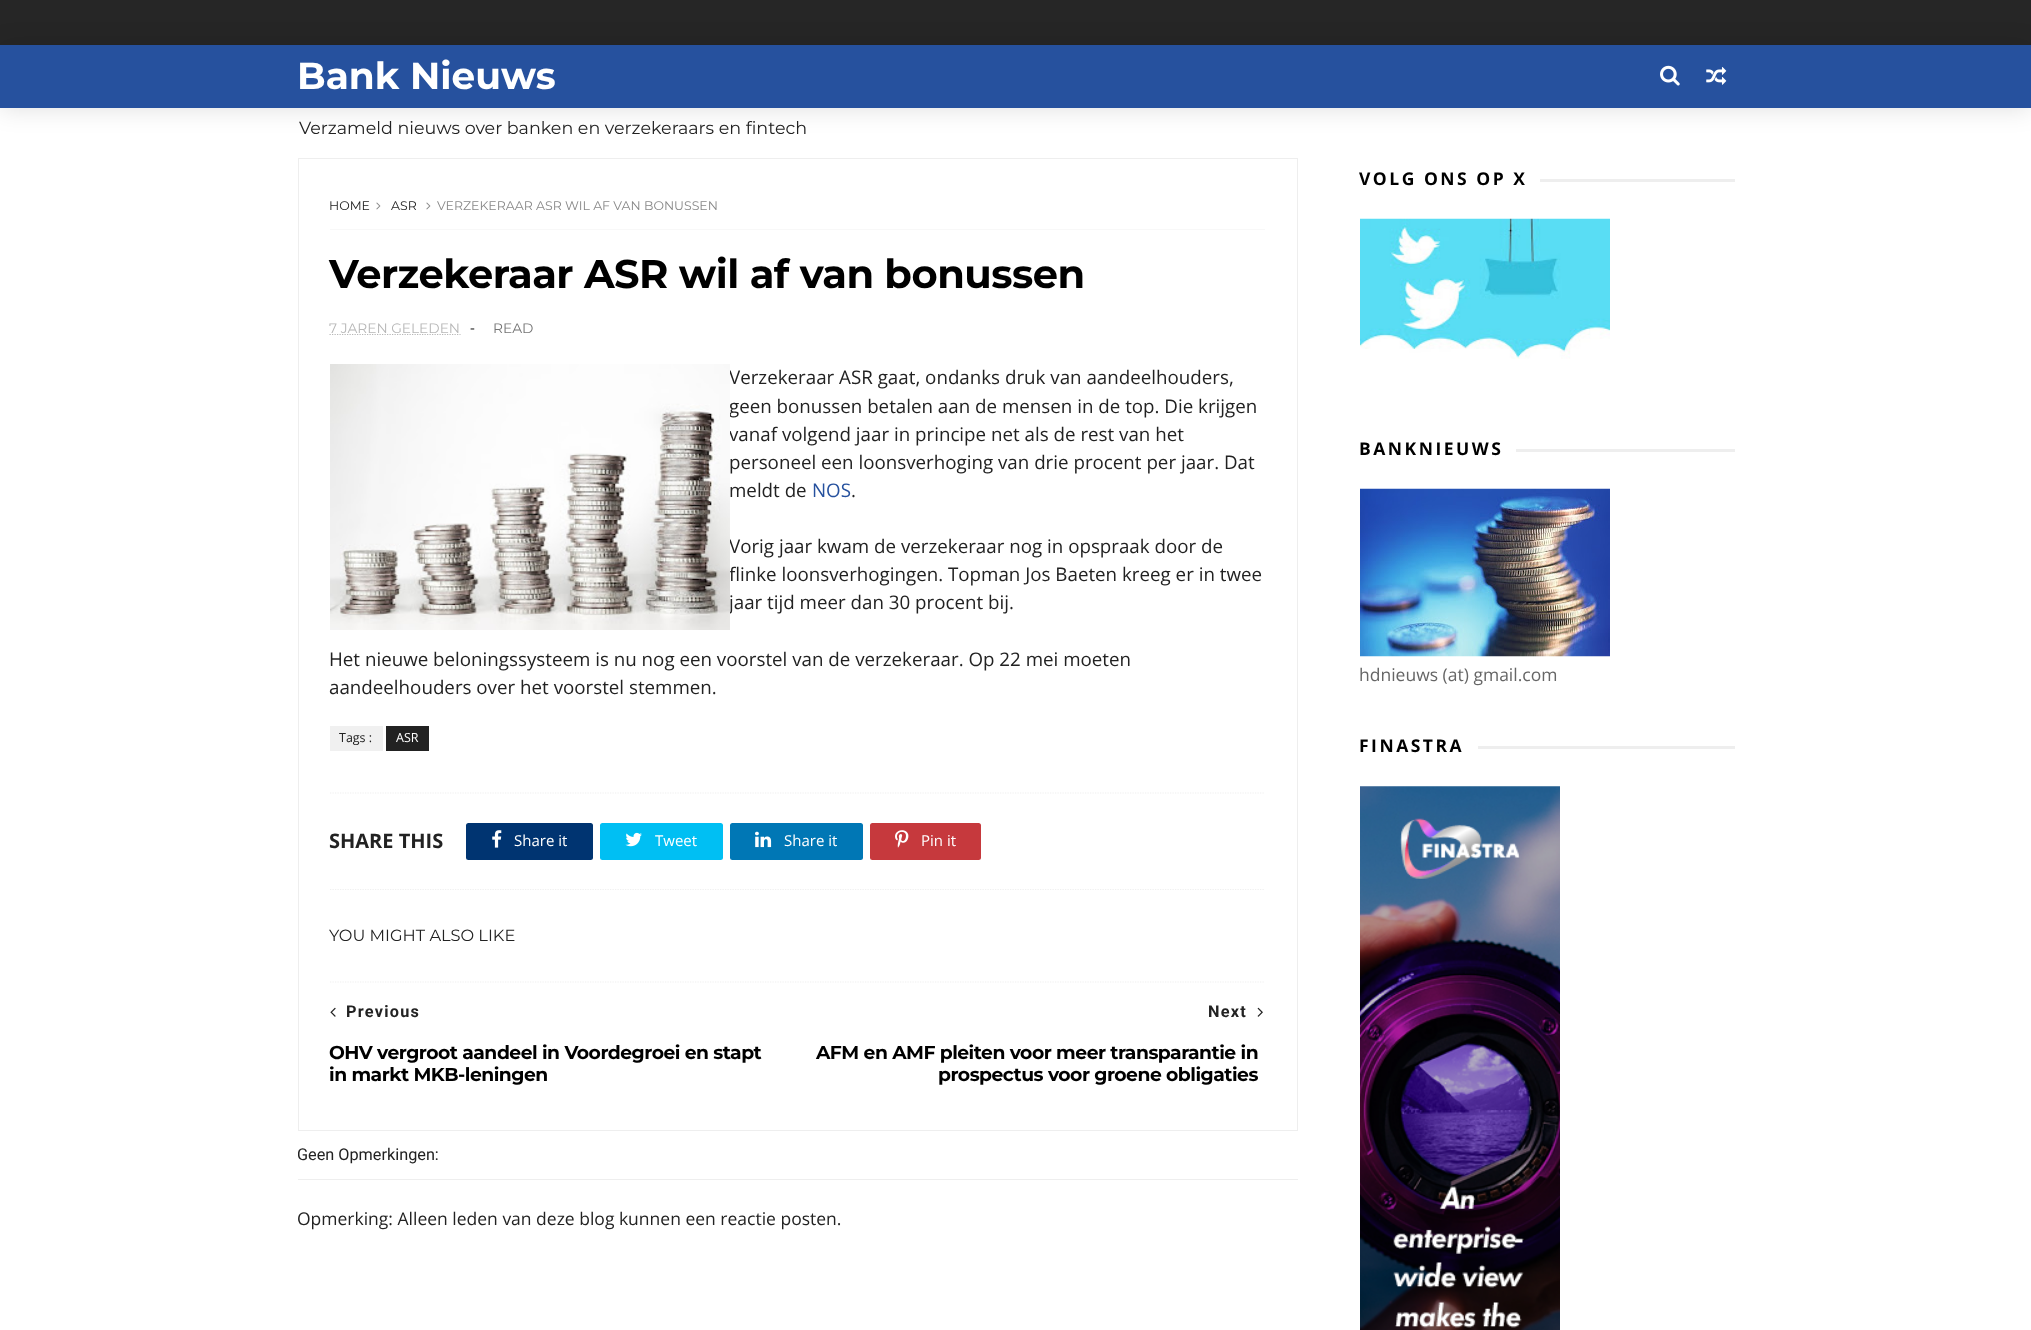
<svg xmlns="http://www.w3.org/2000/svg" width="2031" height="1330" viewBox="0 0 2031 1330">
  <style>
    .t1 { font: bold 37.5px Montserrat; fill: #fff; }
    .t2 { font: 17.5px Montserrat; fill: #222; }
    .t3 { font: 12.5px Montserrat; fill: #222; }
    .t4 { font: 12.5px Montserrat; fill: #888; }
    .t5 { font: bold 40px Montserrat; letter-spacing: -0.5px; fill: #000; }
    .t6 { font: 13.75px Montserrat; fill: #b7b7b7; }
    .t7 { font: 15px Open Sans; fill: #222; }
    .t8 { font: 13.75px Montserrat; fill: #757575; }
    .t9 { font: 18.75px Open Sans; fill: #222; }
    .t10 { font: 18.75px Open Sans; fill: #26519e; }
    .t11 { font: 12.5px Open Sans; fill: #222; }
    .t12 { font: 12.5px Open Sans; fill: #fff; }
    .t13 { font: bold 20px Open Sans; fill: #222; }
    .t14 { font: 15px Open Sans; fill: #fff; }
    .t15 { font: 16.25px Montserrat; fill: #222; }
    .t16 { font: bold 16.25px Roboto; letter-spacing: 1.25px; fill: #222; }
    .t17 { font: bold 18.75px Montserrat; letter-spacing: -0.5px; fill: #000; }
    .t18 { font: 16.25px Roboto; fill: #222; }
    .t19 { font: 17.5px Open Sans; fill: #222; }
    .t20 { font: bold 17.5px Open Sans; letter-spacing: 2.5px; fill: #000; }
    .t21 { font: 17.5px Open Sans; fill: #666; }
  </style>
  <defs>
    <clipPath id="clip1"><rect x="298" y="158" width="1000" height="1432"/></clipPath>
  </defs>
  <rect width="100%" height="100%" fill="#fff"/>
  <rect x="0" y="0" width="2031" height="45" fill="#262626"/>
  <rect x="0" y="46" width="2031" height="63" fill="#0000001f" filter="blur(12.5px)"/>
  <rect x="0" y="45" width="2031" height="63" fill="#26519e"/>
  <text x="297" y="89" class="t1">Bank Nieuws</text>
  <text x="299" y="134" class="t2">Verzameld nieuws over banken en verzekeraars en fintech</text>
  <image x="1660" y="65" width="20" height="21" href="images/1.png"/>
  <image x="1706" y="67" width="21" height="18" href="images/2.png"/>
  <rect x="298.5" y="158.5" width="999" height="972" fill="none" stroke="#eee"/>
  <text x="329" y="210" class="t3">HOME</text>
  <image x="376" y="202" width="5" height="8" href="images/3.png"/>
  <text x="391" y="210" class="t3">ASR</text>
  <image x="426" y="202" width="5" height="8" href="images/3.png"/>
  <text x="437" y="210" class="t4">VERZEKERAAR ASR WIL AF VAN BONUSSEN</text>
  <rect x="330" y="229" width="935" height="1" fill="#f8f8f8"/>
  <text x="329" y="288" class="t5">Verzekeraar ASR wil af van bonussen</text>
  <path d="M329.5 334.5H460.5" fill="none" stroke="#b7b7b7" stroke-width="1.2" stroke-dasharray="1.25 1.25"/>
  <text x="329" y="333" class="t6">7 JAREN GELEDEN</text>
  <text x="470" y="333" class="t7">-</text>
  <text x="493" y="333" class="t8">READ</text>
  <text x="729" y="384" class="t9">Verzekeraar ASR gaat, ondanks druk van aandeelhouders,</text>
  <text x="729" y="413" class="t9">geen bonussen betalen aan de mensen in de top. Die krijgen</text>
  <text x="729" y="441" class="t9">vanaf volgend jaar in principe net als de rest van het</text>
  <text x="729" y="553" class="t9">Vorig jaar kwam de verzekeraar nog in opspraak door de</text>
  <text x="729" y="581" class="t9">flinke loonsverhogingen. Topman Jos Baeten kreeg er in twee</text>
  <text x="729" y="609" class="t9">jaar tijd meer dan 30 procent bij.</text>
  <image x="330" y="364" width="400" height="266" href="images/4.png"/>
  <text x="729" y="469" class="t9">personeel een loonsverhoging van drie procent per jaar. Dat</text>
  <text x="729" y="497" class="t9">meldt de</text>
  <text x="812" y="497" class="t10">NOS</text>
  <text x="851" y="497" class="t9">.</text>
  <text x="329" y="666" class="t9">Het nieuwe beloningssysteem is nu nog een voorstel van de verzekeraar. Op 22 mei moeten</text>
  <text x="329" y="694" class="t9">aandeelhouders over het voorstel stemmen.</text>
  <rect x="330" y="726" width="53" height="25" fill="#f0f0f0"/>
  <text x="339" y="742" class="t11">Tags :</text>
  <rect x="386" y="726" width="43" height="25" fill="#222"/>
  <text x="396" y="742" class="t12">ASR</text>
  <path d="M330 793H1265" fill="none" stroke="#f0f0f0" stroke-width="1.2" stroke-dasharray="1.25 1.25"/>
  <path d="M330 889.5H1265" fill="none" stroke="#f0f0f0" stroke-width="1.2" stroke-dasharray="1.25 1.25"/>
  <text x="329" y="848" class="t13">SHARE THIS</text>
  <rect x="466" y="823" width="127" height="37" rx="2.5" fill="#003471"/>
  <image x="492" y="830" width="10" height="18" href="images/5.png"/>
  <text x="514" y="846" class="t14">Share it</text>
  <rect x="600" y="823" width="123" height="37" rx="2.5" fill="#00bff3"/>
  <image x="625" y="832" width="17" height="15" href="images/6.png"/>
  <text x="655" y="846" class="t14">Tweet</text>
  <rect x="730" y="823" width="133" height="37" rx="2.5" fill="#0077b5"/>
  <image x="755" y="831" width="17" height="17" href="images/7.png"/>
  <text x="784" y="846" class="t14">Share it</text>
  <rect x="870" y="823" width="111" height="37" rx="2.5" fill="#c6393d"/>
  <image x="895" y="830" width="14" height="18" href="images/8.png"/>
  <text x="921" y="846" class="t14">Pin it</text>
  <text x="329" y="941" class="t15">YOU MIGHT ALSO LIKE</text>
  <path d="M330 982H1265" fill="none" stroke="#f0f0f0" stroke-width="1.2" stroke-dasharray="1.25 1.25"/>
  <image x="330" y="1007" width="6" height="10" href="images/9.png"/>
  <text x="346" y="1017" class="t16">Previous</text>
  <text x="329" y="1059" class="t17">OHV vergroot aandeel in Voordegroei en stapt</text>
  <text x="329" y="1081" class="t17">in markt MKB-leningen</text>
  <text x="1208" y="1017" class="t16">Next</text>
  <image x="1257" y="1007" width="6" height="10" href="images/10.png"/>
  <text x="816" y="1059" class="t17">AFM en AMF pleiten voor meer transparantie in</text>
  <text x="938" y="1081" class="t17">prospectus voor groene obligaties</text>
  <rect x="298" y="1179" width="1000" height="1" fill="#eee"/>
  <g clip-path="url(#clip1)">
    <text x="297" y="1160" class="t18">Geen Opmerkingen:</text>
  </g>
  <text x="297" y="1225" class="t19">Opmerking: Alleen leden van deze blog kunnen een reactie posten.</text>
  <text x="1359" y="185" class="t20">VOLG ONS OP X</text>
  <rect x="1540" y="179" width="195" height="3" fill="#eee"/>
  <image x="1360" y="218" width="250" height="141" href="images/11.png"/>
  <text x="1359" y="455" class="t20">BANKNIEUWS</text>
  <rect x="1516" y="449" width="219" height="3" fill="#eee"/>
  <image x="1360" y="488" width="250" height="169" href="images/12.png"/>
  <text x="1359" y="681" class="t21">hdnieuws (at) gmail.com</text>
  <text x="1359" y="752" class="t20">FINASTRA</text>
  <rect x="1478" y="746" width="257" height="3" fill="#eee"/>
  <image x="1360" y="786" width="200" height="544" href="images/13.png"/>
</svg>
